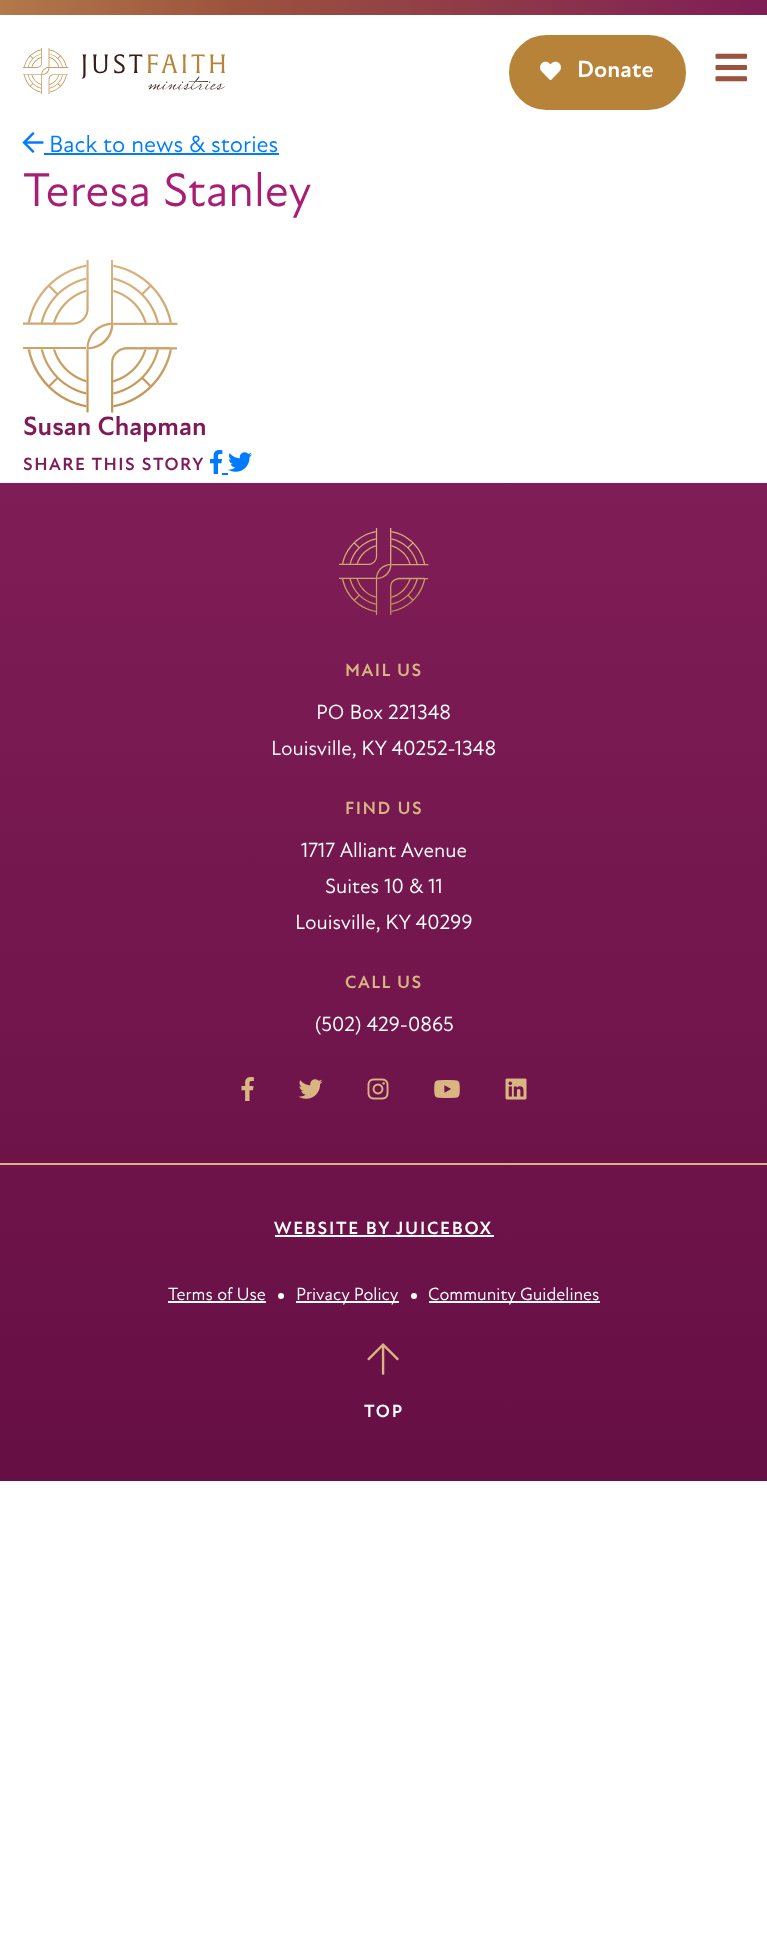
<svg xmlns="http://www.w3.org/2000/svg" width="767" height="1958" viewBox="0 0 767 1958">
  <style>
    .t1 { font: bold 24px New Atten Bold; fill: #fff; }
    .t2 { font: 24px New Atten; fill: #007bff; }
    .t3 { font: 48px New Atten; fill: #a71e72; }
    .t4 { font: bold 27px New Atten Bold; fill: #7d1a57; }
    .t5 { font: bold 18px New Atten Bold; letter-spacing: 1.5px; fill: #7d1a57; }
    .t6 { font: bold 18px New Atten Bold; letter-spacing: 1.5px; fill: #d9b582; }
    .t7 { font: 21px New Atten; fill: #fff; }
    .t8 { font: bold 18px New Atten Bold; letter-spacing: 1.75px; fill: #fff; }
    .t9 { font: 18px New Atten; fill: #fff; }
  </style>
  <defs>
    <linearGradient id="g1" gradientUnits="userSpaceOnUse" x1="-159" y1="7.5" x2="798" y2="7.5"><stop offset="0" stop-color="#c19352"/><stop offset="0.41" stop-color="#9c533d"/><stop offset="1" stop-color="#7d1a57"/></linearGradient>
    <linearGradient id="g2" gradientUnits="userSpaceOnUse" x1="384" y1="483" x2="384" y2="1481"><stop offset="0" stop-color="#7f1d56"/><stop offset="1" stop-color="#660f45"/></linearGradient>
  </defs>
  <rect width="100%" height="100%" fill="#fff"/>
  <rect x="0" y="0" width="767" height="15" fill="url(#g1)"/>
  <image x="23" y="48" width="202" height="46" href="images/1.png"/>
  <rect x="510" y="36" width="175" height="73" rx="36.5" fill="#b78339" stroke="#b78339" stroke-width="2"/>
  <image x="540" y="61" width="21" height="19" href="images/2.png"/>
  <text x="577" y="77" class="t1">Donate</text>
  <image x="715" y="53" width="32" height="29" href="images/3.png"/>
  <image x="22" y="132" width="22" height="21" href="images/4.png"/>
  <text x="49" y="152" class="t2">Back to news &amp; stories</text>
  <rect x="44" y="153" width="235" height="2" fill="#007bff"/>
  <text x="23" y="206" class="t3">Teresa Stanley</text>
  <image x="23" y="260" width="155" height="153" href="images/5.png"/>
  <text x="23" y="435" class="t4">Susan Chapman</text>
  <text x="23" y="470" class="t5">SHARE THIS STORY</text>
  <image x="210" y="450" width="13" height="24" href="images/6.png"/>
  <rect x="222" y="473" width="6" height="2" fill="#007bff"/>
  <image x="228" y="452" width="24" height="20" href="images/7.png"/>
  <rect x="0" y="483" width="767" height="998" fill="url(#g2)"/>
  <image x="339" y="528" width="90" height="87" href="images/8.png"/>
  <text x="345" y="676" class="t6">MAIL US</text>
  <text x="316" y="719" class="t7">PO Box 221348</text>
  <text x="271" y="755" class="t7">Louisville, KY 40252-1348</text>
  <text x="345" y="814" class="t6">FIND US</text>
  <text x="301" y="857" class="t7">1717 Alliant Avenue</text>
  <text x="325" y="893" class="t7">Suites 10 &amp; 11</text>
  <text x="295" y="929" class="t7">Louisville, KY 40299</text>
  <text x="345" y="988" class="t6">CALL US</text>
  <text x="315" y="1031" class="t7">(502) 429-0865</text>
  <image x="241" y="1077" width="13" height="24" href="images/9.png"/>
  <image x="298" y="1079" width="25" height="20" href="images/10.png"/>
  <image x="367" y="1078" width="22" height="22" href="images/11.png"/>
  <image x="434" y="1080" width="26" height="18" href="images/12.png"/>
  <image x="505" y="1078" width="22" height="22" href="images/13.png"/>
  <rect x="0" y="1163" width="767" height="2" fill="#d9b582"/>
  <text x="274" y="1234" class="t8">WEBSITE BY JUICEBOX</text>
  <rect x="275" y="1235" width="219" height="2" fill="#fff"/>
  <text x="168" y="1300" class="t9">Terms of Use</text>
  <rect x="168" y="1301" width="98" height="2" fill="#fff"/>
  <circle cx="281" cy="1296" r="3" fill="#fff"/>
  <rect x="296" y="1301" width="103" height="2" fill="#fff"/>
  <text x="296" y="1300" class="t9">Privacy Policy</text>
  <circle cx="414" cy="1296" r="3" fill="#fff"/>
  <rect x="429" y="1301" width="171" height="2" fill="#fff"/>
  <text x="428" y="1300" class="t9">Community Guidelines</text>
  <image x="367" y="1343" width="32" height="32" href="images/14.png"/>
  <text x="364" y="1417" class="t8">TOP</text>
</svg>
